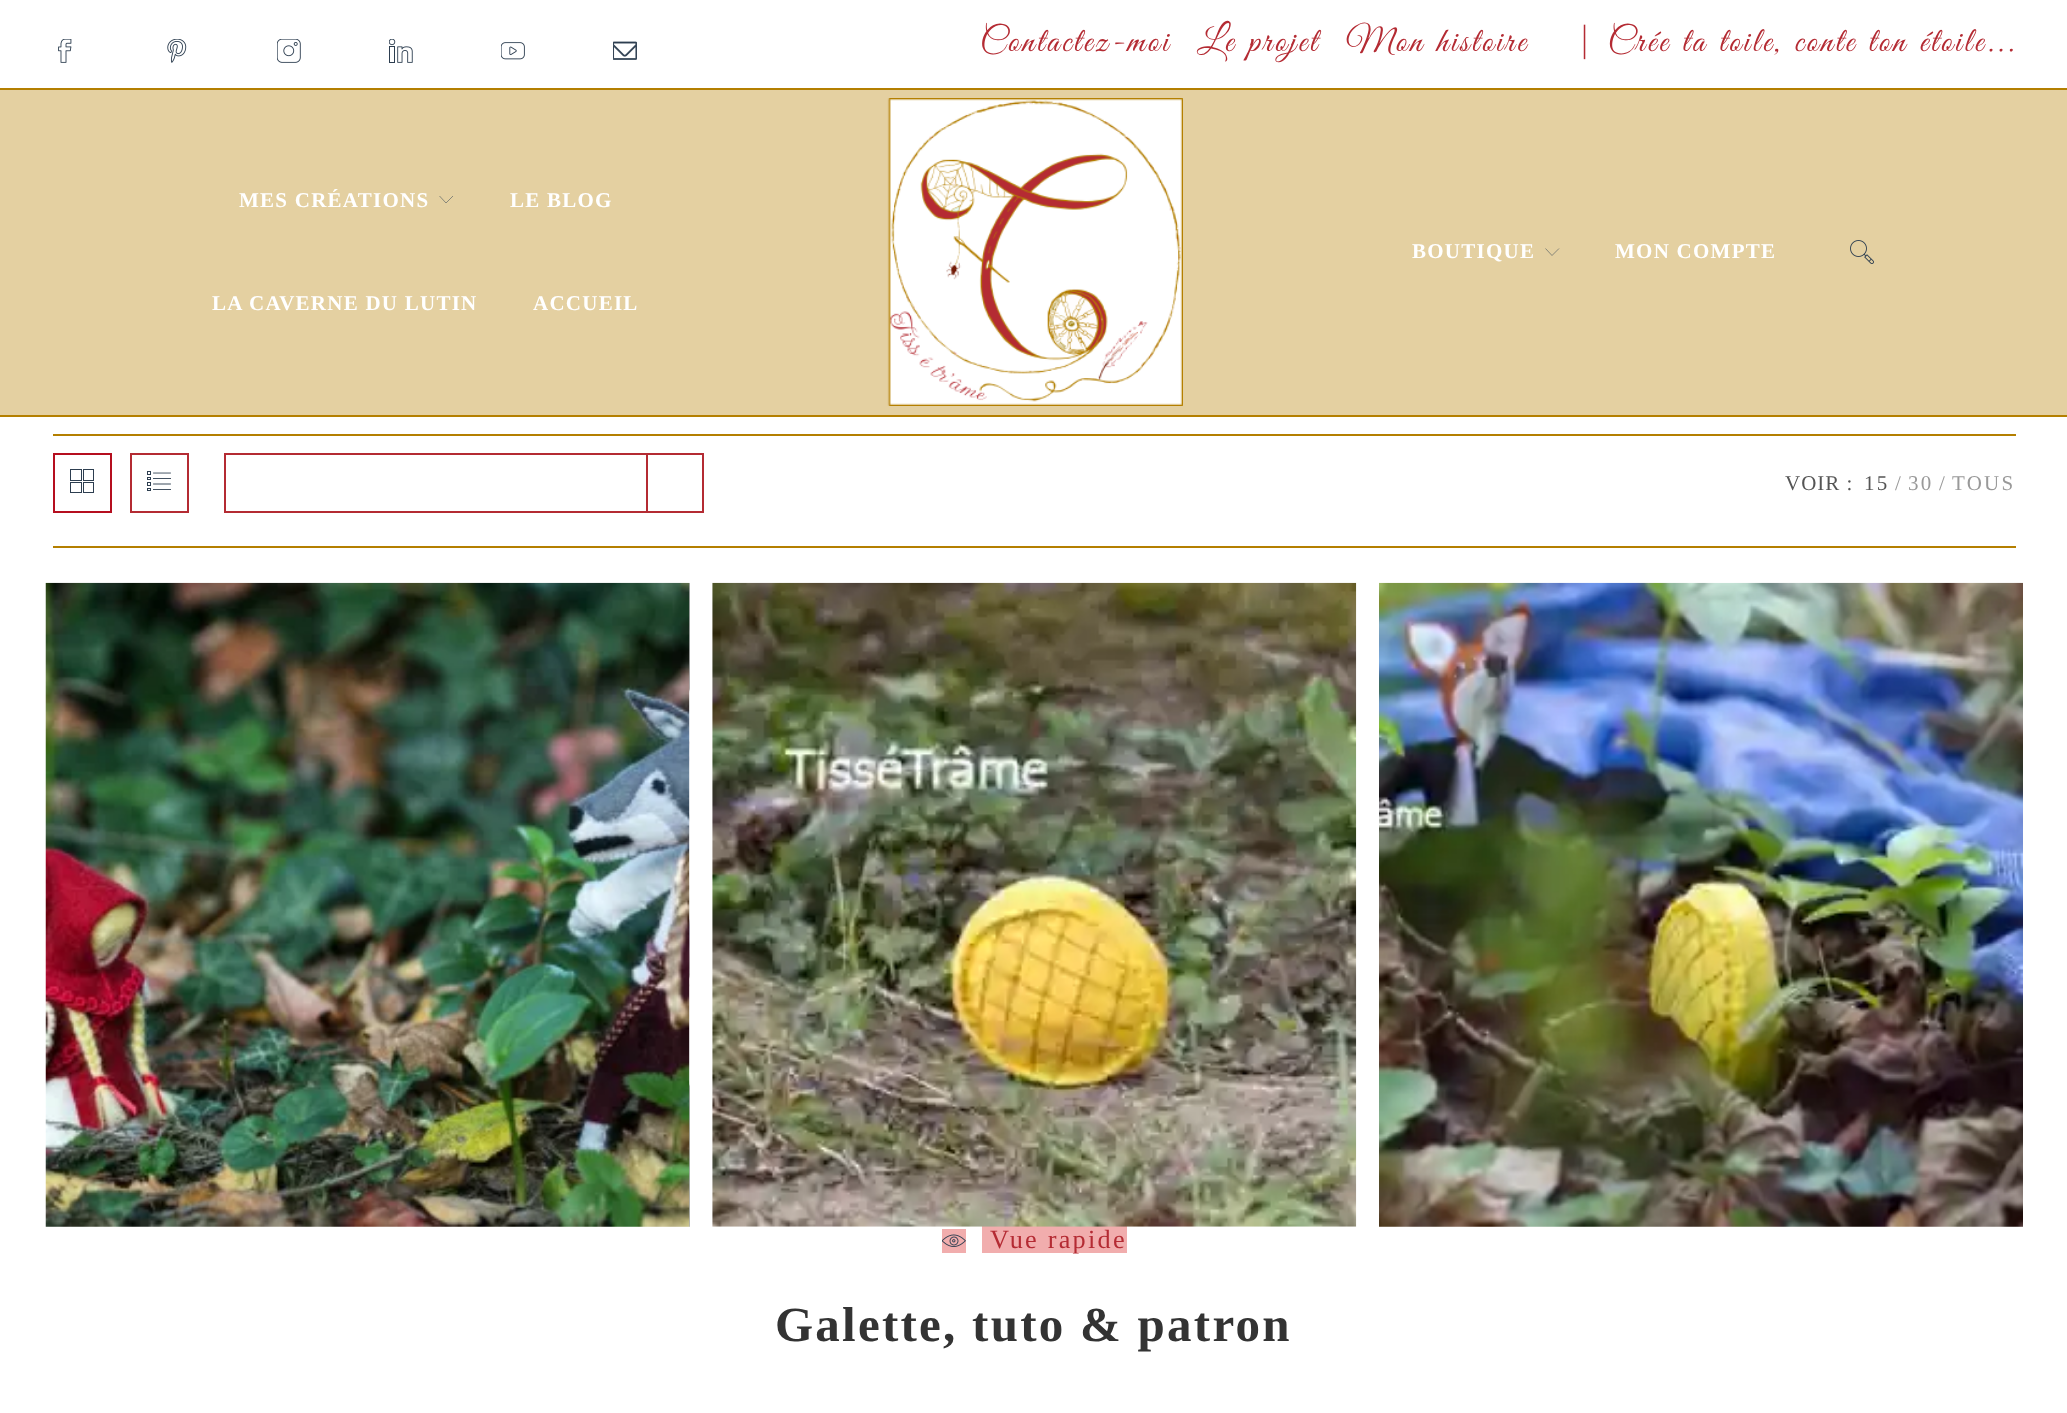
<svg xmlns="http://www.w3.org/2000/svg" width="2067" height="1413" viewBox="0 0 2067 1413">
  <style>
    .t1 { font: 35px Great Vibes; letter-spacing: 2.8px; fill: #b42b33; }
    .t2 { font: bold 21px Liberation Serif; letter-spacing: 1.25px; fill: #fff; }
    .t3 { font: 21px Liberation Serif; letter-spacing: 1px; fill: #555; }
    .t4 { font: 21px Liberation Serif; letter-spacing: 2.25px; fill: #555; }
    .t5 { font: 21px Liberation Serif; letter-spacing: 2.25px; fill: #999; }
    .t6 { font: 26.25px Liberation Serif; letter-spacing: 2.25px; fill: #b42b33; }
    .t7 { font: bold 49px Liberation Serif; letter-spacing: 2.25px; fill: #333; }
  </style>
  <rect width="100%" height="100%" fill="#fff"/>
  <rect x="0" y="88" width="2067" height="2" fill="#b47f00"/>
  <image x="58" y="39" width="14" height="24" href="images/1.png"/>
  <image x="167" y="39" width="20" height="24" href="images/2.png"/>
  <image x="277" y="39" width="24" height="24" href="images/3.png"/>
  <image x="389" y="39" width="24" height="24" href="images/4.png"/>
  <image x="501" y="42" width="24" height="18" href="images/5.png"/>
  <image x="613" y="41" width="24" height="19" href="images/6.png"/>
  <text x="980" y="51" class="t1">Contactez-moi</text>
  <text x="1197" y="51" class="t1">Le projet</text>
  <text x="1346" y="51" class="t1">Mon histoire</text>
  <text x="1576" y="51" class="t1">| Crée ta toile, conte ton étoile...</text>
  <rect x="0" y="90" width="2067" height="325" fill="#e4d0a1"/>
  <rect x="0" y="415" width="2067" height="2" fill="#b47f00"/>
  <text x="239" y="207" class="t2">MES CRÉATIONS</text>
  <path d="M453 196L446 203L439.5 196" fill="none" stroke="#2d3e50" stroke-width="0.5"/>
  <text x="510" y="207" class="t2">LE BLOG</text>
  <text x="212" y="310" class="t2">LA CAVERNE DU LUTIN</text>
  <text x="533" y="310" class="t2">ACCUEIL</text>
  <image x="887" y="98" width="296" height="308" href="images/7.png"/>
  <text x="1412" y="258" class="t2">BOUTIQUE</text>
  <path d="M1559 248.5L1552 255.5L1545.5 248.5" fill="none" stroke="#2d3e50" stroke-width="0.5"/>
  <text x="1615" y="258" class="t2">MON COMPTE</text>
  <image x="1850" y="240" width="24" height="24" href="images/8.png"/>
  <rect x="53" y="434" width="1963" height="2" fill="#b47f00"/>
  <rect x="53" y="546" width="1963" height="2" fill="#b47f00"/>
  <rect x="54" y="454" width="57" height="58" fill="none" stroke="#b50e1f" stroke-width="2"/>
  <rect x="70.5" y="469.5" width="11" height="11" fill="none" stroke="#2d3e50"/>
  <rect x="83.5" y="469.5" width="10" height="11" fill="none" stroke="#2d3e50"/>
  <rect x="70.5" y="482.5" width="11" height="10" fill="none" stroke="#2d3e50"/>
  <rect x="83.5" y="482.5" width="10" height="10" fill="none" stroke="#2d3e50"/>
  <rect x="131" y="454" width="57" height="58" fill="none" stroke="#b42b33" stroke-width="2"/>
  <image x="147" y="471" width="24" height="20" href="images/9.png"/>
  <rect x="225" y="454" width="478" height="58" fill="none" stroke="#b42b33" stroke-width="2"/>
  <rect x="646" y="455" width="2" height="56" fill="#b42b33"/>
  <text x="1785" y="490" class="t3">VOIR :</text>
  <text x="1864" y="490" class="t4">15</text>
  <text x="1895" y="490" class="t5">/</text>
  <text x="1908" y="490" class="t5">30</text>
  <text x="1939" y="490" class="t5">/</text>
  <text x="1952" y="490" class="t5">TOUS</text>
  <image x="45" y="582" width="645" height="645" href="images/10.png"/>
  <image x="689" y="583" width="1" height="644" href="images/11.png"/>
  <image x="1379" y="582" width="644" height="645" href="images/12.png"/>
  <rect x="982" y="1226" width="145" height="27" fill="#f1adad"/>
  <image x="712" y="582" width="645" height="645" href="images/13.png"/>
  <rect x="942" y="1229" width="24" height="24" fill="#f1adad"/>
  <image x="942" y="1234" width="24" height="13" href="images/14.png"/>
  <text x="990" y="1248" class="t6">Vue rapide</text>
  <text x="775" y="1341" class="t7">Galette, tuto &amp; patron</text>
</svg>
